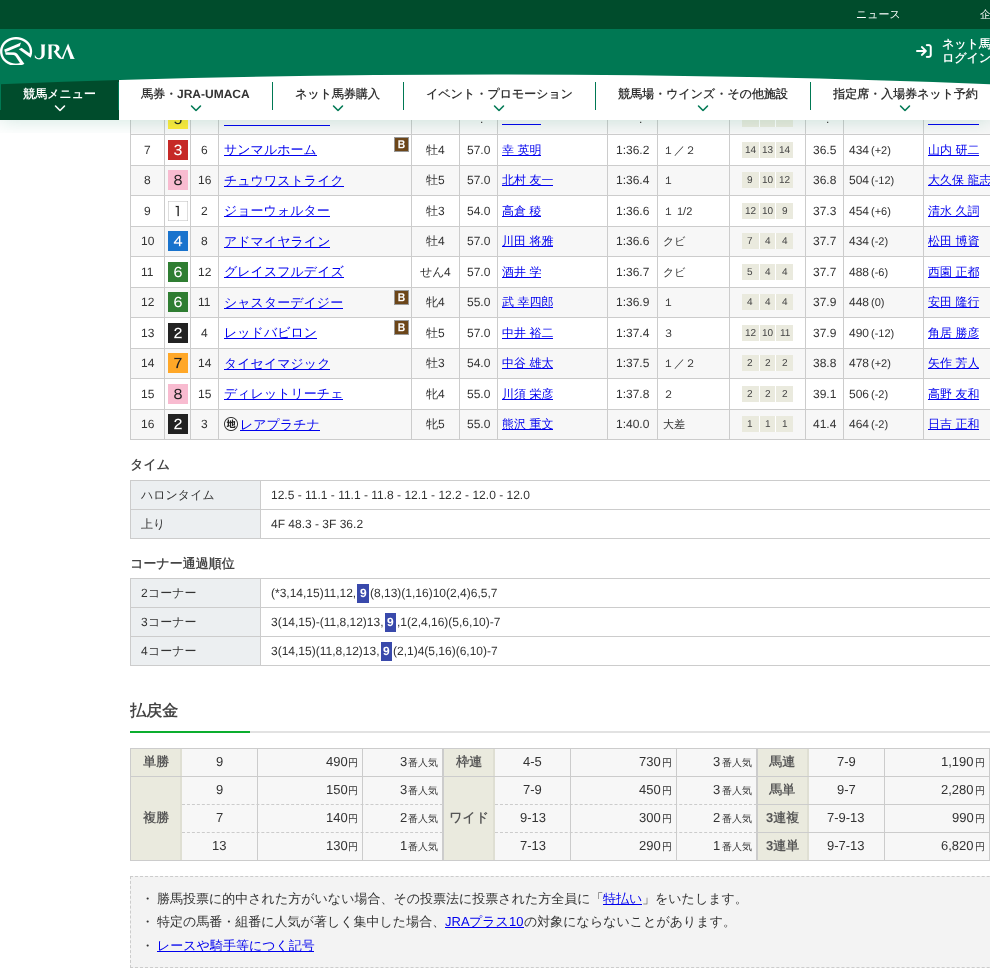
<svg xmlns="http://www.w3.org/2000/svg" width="990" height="974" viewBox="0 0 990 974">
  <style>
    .t1 { font: 500 11px WenQuanYi Zen Hei; fill: #fff; }
    .t2 { font: bold 12px WenQuanYi Zen Hei; fill: #fff; }
    .t3 { font: bold 12px WenQuanYi Zen Hei; fill: #333; }
    .t4 { font: bold 12px Liberation Sans; fill: #333; }
    .t5 { font: 12px Liberation Sans; fill: #333; }
    .t6 { font: 500 13px WenQuanYi Zen Hei; fill: #00e; }
    .t7 { font: 500 12px WenQuanYi Zen Hei; fill: #333; }
    .t8 { font: 500 12px WenQuanYi Zen Hei; fill: #00e; }
    .t9 { font: 500 11px WenQuanYi Zen Hei; fill: #333; }
    .t10 { font: 10px Liberation Sans; fill: #444; }
    .t11 { font: 11px Liberation Sans; fill: #333; }
    .t12 { font: bold 13px WenQuanYi Zen Hei; fill: #444; }
    .t13 { font: bold 12px Liberation Sans; fill: #fff; }
    .t14 { font: bold 16px WenQuanYi Zen Hei; fill: #444; }
    .t15 { font: bold 13px WenQuanYi Zen Hei; fill: #555; }
    .t16 { font: 13px Liberation Sans; fill: #333; }
    .t17 { font: 500 10px WenQuanYi Zen Hei; fill: #333; }
    .t18 { font: bold 13px Liberation Sans; fill: #555; }
    .t19 { font: 500 13px WenQuanYi Zen Hei; fill: #333; }
    .t20 { font: 13px Liberation Sans; fill: #00e; }
  </style>
  <defs>
    <clipPath id="clip1"><rect x="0" y="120" width="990" height="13"/></clipPath>
  </defs>
  <rect width="100%" height="100%" fill="#fff"/>
  <rect x="0" y="0" width="990" height="29" fill="#004c2c"/>
  <text x="856" y="18" class="t1">ニュース</text>
  <text x="980" y="18" class="t1">企</text>
  <rect x="0" y="80" width="119" height="40" fill="#004c2c"/>
  <rect x="0" y="82" width="1" height="28" fill="#007853"/>
  <image x="54" y="105" width="12" height="7" href="images/3.png"/>
  <rect x="118" y="82" width="1" height="28" fill="#007853"/>
  <image x="190" y="105" width="12" height="7" href="images/4.png"/>
  <rect x="272" y="82" width="1" height="28" fill="#007853"/>
  <image x="332" y="105" width="12" height="7" href="images/4.png"/>
  <rect x="403" y="82" width="1" height="28" fill="#007853"/>
  <image x="493" y="105" width="12" height="7" href="images/4.png"/>
  <rect x="595" y="82" width="1" height="28" fill="#007853"/>
  <image x="697" y="105" width="12" height="7" href="images/4.png"/>
  <rect x="810" y="82" width="1" height="28" fill="#007853"/>
  <image x="899" y="105" width="12" height="7" href="images/4.png"/>
  <rect x="131" y="120" width="33" height="14" fill="#f7f7f7"/>
  <rect x="165" y="120" width="25" height="14" fill="#f7f7f7"/>
  <rect x="923" y="134" width="67" height="1" fill="#ccc"/>
  <rect x="923" y="165" width="67" height="1" fill="#ccc"/>
  <rect x="923" y="195" width="67" height="1" fill="#ccc"/>
  <rect x="923" y="226" width="67" height="1" fill="#ccc"/>
  <rect x="923" y="256" width="67" height="1" fill="#ccc"/>
  <rect x="923" y="287" width="67" height="1" fill="#ccc"/>
  <rect x="923" y="317" width="67" height="1" fill="#ccc"/>
  <rect x="923" y="348" width="67" height="1" fill="#ccc"/>
  <rect x="923" y="378" width="67" height="1" fill="#ccc"/>
  <rect x="923" y="409" width="67" height="1" fill="#ccc"/>
  <rect x="923" y="439" width="67" height="1" fill="#ccc"/>
  <rect x="923" y="409" width="1" height="31" fill="#ccc"/>
  <rect x="843" y="409" width="81" height="1" fill="#ccc"/>
  <rect x="923" y="378" width="1" height="32" fill="#ccc"/>
  <rect x="843" y="378" width="81" height="1" fill="#ccc"/>
  <rect x="923" y="348" width="1" height="31" fill="#ccc"/>
  <rect x="843" y="348" width="81" height="1" fill="#ccc"/>
  <rect x="923" y="317" width="1" height="32" fill="#ccc"/>
  <rect x="843" y="317" width="81" height="1" fill="#ccc"/>
  <rect x="923" y="287" width="1" height="31" fill="#ccc"/>
  <rect x="843" y="287" width="81" height="1" fill="#ccc"/>
  <rect x="923" y="256" width="1" height="32" fill="#ccc"/>
  <rect x="843" y="256" width="81" height="1" fill="#ccc"/>
  <rect x="923" y="226" width="1" height="31" fill="#ccc"/>
  <rect x="843" y="226" width="81" height="1" fill="#ccc"/>
  <rect x="923" y="195" width="1" height="32" fill="#ccc"/>
  <rect x="843" y="195" width="81" height="1" fill="#ccc"/>
  <rect x="923" y="165" width="1" height="31" fill="#ccc"/>
  <rect x="843" y="165" width="81" height="1" fill="#ccc"/>
  <rect x="923" y="134" width="1" height="32" fill="#ccc"/>
  <rect x="843" y="134" width="81" height="1" fill="#ccc"/>
  <rect x="843" y="439" width="81" height="1" fill="#ccc"/>
  <rect x="843" y="409" width="1" height="31" fill="#ccc"/>
  <rect x="805" y="409" width="39" height="1" fill="#ccc"/>
  <rect x="843" y="378" width="1" height="32" fill="#ccc"/>
  <rect x="805" y="378" width="39" height="1" fill="#ccc"/>
  <rect x="843" y="348" width="1" height="31" fill="#ccc"/>
  <rect x="805" y="348" width="39" height="1" fill="#ccc"/>
  <rect x="843" y="317" width="1" height="32" fill="#ccc"/>
  <rect x="805" y="317" width="39" height="1" fill="#ccc"/>
  <rect x="843" y="287" width="1" height="31" fill="#ccc"/>
  <rect x="805" y="287" width="39" height="1" fill="#ccc"/>
  <rect x="843" y="256" width="1" height="32" fill="#ccc"/>
  <rect x="805" y="256" width="39" height="1" fill="#ccc"/>
  <rect x="843" y="226" width="1" height="31" fill="#ccc"/>
  <rect x="805" y="226" width="39" height="1" fill="#ccc"/>
  <rect x="843" y="195" width="1" height="32" fill="#ccc"/>
  <rect x="805" y="195" width="39" height="1" fill="#ccc"/>
  <rect x="843" y="165" width="1" height="31" fill="#ccc"/>
  <rect x="805" y="165" width="39" height="1" fill="#ccc"/>
  <rect x="843" y="134" width="1" height="32" fill="#ccc"/>
  <rect x="805" y="134" width="39" height="1" fill="#ccc"/>
  <rect x="805" y="439" width="39" height="1" fill="#ccc"/>
  <rect x="805" y="409" width="1" height="31" fill="#ccc"/>
  <rect x="729" y="409" width="77" height="1" fill="#ccc"/>
  <rect x="805" y="378" width="1" height="32" fill="#ccc"/>
  <rect x="729" y="378" width="77" height="1" fill="#ccc"/>
  <rect x="805" y="348" width="1" height="31" fill="#ccc"/>
  <rect x="729" y="348" width="77" height="1" fill="#ccc"/>
  <rect x="805" y="317" width="1" height="32" fill="#ccc"/>
  <rect x="729" y="317" width="77" height="1" fill="#ccc"/>
  <rect x="805" y="287" width="1" height="31" fill="#ccc"/>
  <rect x="729" y="287" width="77" height="1" fill="#ccc"/>
  <rect x="805" y="256" width="1" height="32" fill="#ccc"/>
  <rect x="729" y="256" width="77" height="1" fill="#ccc"/>
  <rect x="805" y="226" width="1" height="31" fill="#ccc"/>
  <rect x="729" y="226" width="77" height="1" fill="#ccc"/>
  <rect x="805" y="195" width="1" height="32" fill="#ccc"/>
  <rect x="729" y="195" width="77" height="1" fill="#ccc"/>
  <rect x="805" y="165" width="1" height="31" fill="#ccc"/>
  <rect x="729" y="165" width="77" height="1" fill="#ccc"/>
  <rect x="805" y="134" width="1" height="32" fill="#ccc"/>
  <rect x="729" y="134" width="77" height="1" fill="#ccc"/>
  <rect x="729" y="439" width="77" height="1" fill="#ccc"/>
  <rect x="729" y="409" width="1" height="31" fill="#ccc"/>
  <rect x="657" y="409" width="73" height="1" fill="#ccc"/>
  <rect x="729" y="378" width="1" height="32" fill="#ccc"/>
  <rect x="657" y="378" width="73" height="1" fill="#ccc"/>
  <rect x="729" y="348" width="1" height="31" fill="#ccc"/>
  <rect x="657" y="348" width="73" height="1" fill="#ccc"/>
  <rect x="729" y="317" width="1" height="32" fill="#ccc"/>
  <rect x="657" y="317" width="73" height="1" fill="#ccc"/>
  <rect x="729" y="287" width="1" height="31" fill="#ccc"/>
  <rect x="657" y="287" width="73" height="1" fill="#ccc"/>
  <rect x="729" y="256" width="1" height="32" fill="#ccc"/>
  <rect x="657" y="256" width="73" height="1" fill="#ccc"/>
  <rect x="729" y="226" width="1" height="31" fill="#ccc"/>
  <rect x="657" y="226" width="73" height="1" fill="#ccc"/>
  <rect x="729" y="195" width="1" height="32" fill="#ccc"/>
  <rect x="657" y="195" width="73" height="1" fill="#ccc"/>
  <rect x="729" y="165" width="1" height="31" fill="#ccc"/>
  <rect x="657" y="165" width="73" height="1" fill="#ccc"/>
  <rect x="729" y="134" width="1" height="32" fill="#ccc"/>
  <rect x="657" y="134" width="73" height="1" fill="#ccc"/>
  <rect x="657" y="439" width="73" height="1" fill="#ccc"/>
  <rect x="657" y="409" width="1" height="31" fill="#ccc"/>
  <rect x="607" y="409" width="51" height="1" fill="#ccc"/>
  <rect x="657" y="378" width="1" height="32" fill="#ccc"/>
  <rect x="607" y="378" width="51" height="1" fill="#ccc"/>
  <rect x="657" y="348" width="1" height="31" fill="#ccc"/>
  <rect x="607" y="348" width="51" height="1" fill="#ccc"/>
  <rect x="657" y="317" width="1" height="32" fill="#ccc"/>
  <rect x="607" y="317" width="51" height="1" fill="#ccc"/>
  <rect x="657" y="287" width="1" height="31" fill="#ccc"/>
  <rect x="607" y="287" width="51" height="1" fill="#ccc"/>
  <rect x="657" y="256" width="1" height="32" fill="#ccc"/>
  <rect x="607" y="256" width="51" height="1" fill="#ccc"/>
  <rect x="657" y="226" width="1" height="31" fill="#ccc"/>
  <rect x="607" y="226" width="51" height="1" fill="#ccc"/>
  <rect x="657" y="195" width="1" height="32" fill="#ccc"/>
  <rect x="607" y="195" width="51" height="1" fill="#ccc"/>
  <rect x="657" y="165" width="1" height="31" fill="#ccc"/>
  <rect x="607" y="165" width="51" height="1" fill="#ccc"/>
  <rect x="657" y="134" width="1" height="32" fill="#ccc"/>
  <rect x="607" y="134" width="51" height="1" fill="#ccc"/>
  <rect x="607" y="439" width="51" height="1" fill="#ccc"/>
  <rect x="607" y="409" width="1" height="31" fill="#ccc"/>
  <rect x="497" y="409" width="111" height="1" fill="#ccc"/>
  <rect x="607" y="378" width="1" height="32" fill="#ccc"/>
  <rect x="497" y="378" width="111" height="1" fill="#ccc"/>
  <rect x="607" y="348" width="1" height="31" fill="#ccc"/>
  <rect x="497" y="348" width="111" height="1" fill="#ccc"/>
  <rect x="607" y="317" width="1" height="32" fill="#ccc"/>
  <rect x="497" y="317" width="111" height="1" fill="#ccc"/>
  <rect x="607" y="287" width="1" height="31" fill="#ccc"/>
  <rect x="497" y="287" width="111" height="1" fill="#ccc"/>
  <rect x="607" y="256" width="1" height="32" fill="#ccc"/>
  <rect x="497" y="256" width="111" height="1" fill="#ccc"/>
  <rect x="607" y="226" width="1" height="31" fill="#ccc"/>
  <rect x="497" y="226" width="111" height="1" fill="#ccc"/>
  <rect x="607" y="195" width="1" height="32" fill="#ccc"/>
  <rect x="497" y="195" width="111" height="1" fill="#ccc"/>
  <rect x="607" y="165" width="1" height="31" fill="#ccc"/>
  <rect x="497" y="165" width="111" height="1" fill="#ccc"/>
  <rect x="607" y="134" width="1" height="32" fill="#ccc"/>
  <rect x="497" y="134" width="111" height="1" fill="#ccc"/>
  <rect x="497" y="439" width="111" height="1" fill="#ccc"/>
  <rect x="497" y="409" width="1" height="31" fill="#ccc"/>
  <rect x="459" y="409" width="39" height="1" fill="#ccc"/>
  <rect x="497" y="378" width="1" height="32" fill="#ccc"/>
  <rect x="459" y="378" width="39" height="1" fill="#ccc"/>
  <rect x="497" y="348" width="1" height="31" fill="#ccc"/>
  <rect x="459" y="348" width="39" height="1" fill="#ccc"/>
  <rect x="497" y="317" width="1" height="32" fill="#ccc"/>
  <rect x="459" y="317" width="39" height="1" fill="#ccc"/>
  <rect x="497" y="287" width="1" height="31" fill="#ccc"/>
  <rect x="459" y="287" width="39" height="1" fill="#ccc"/>
  <rect x="497" y="256" width="1" height="32" fill="#ccc"/>
  <rect x="459" y="256" width="39" height="1" fill="#ccc"/>
  <rect x="497" y="226" width="1" height="31" fill="#ccc"/>
  <rect x="459" y="226" width="39" height="1" fill="#ccc"/>
  <rect x="497" y="195" width="1" height="32" fill="#ccc"/>
  <rect x="459" y="195" width="39" height="1" fill="#ccc"/>
  <rect x="497" y="165" width="1" height="31" fill="#ccc"/>
  <rect x="459" y="165" width="39" height="1" fill="#ccc"/>
  <rect x="497" y="134" width="1" height="32" fill="#ccc"/>
  <rect x="459" y="134" width="39" height="1" fill="#ccc"/>
  <rect x="459" y="439" width="39" height="1" fill="#ccc"/>
  <rect x="459" y="409" width="1" height="31" fill="#ccc"/>
  <rect x="411" y="409" width="49" height="1" fill="#ccc"/>
  <rect x="459" y="378" width="1" height="32" fill="#ccc"/>
  <rect x="411" y="378" width="49" height="1" fill="#ccc"/>
  <rect x="459" y="348" width="1" height="31" fill="#ccc"/>
  <rect x="411" y="348" width="49" height="1" fill="#ccc"/>
  <rect x="459" y="317" width="1" height="32" fill="#ccc"/>
  <rect x="411" y="317" width="49" height="1" fill="#ccc"/>
  <rect x="459" y="287" width="1" height="31" fill="#ccc"/>
  <rect x="411" y="287" width="49" height="1" fill="#ccc"/>
  <rect x="459" y="256" width="1" height="32" fill="#ccc"/>
  <rect x="411" y="256" width="49" height="1" fill="#ccc"/>
  <rect x="459" y="226" width="1" height="31" fill="#ccc"/>
  <rect x="411" y="226" width="49" height="1" fill="#ccc"/>
  <rect x="459" y="195" width="1" height="32" fill="#ccc"/>
  <rect x="411" y="195" width="49" height="1" fill="#ccc"/>
  <rect x="459" y="165" width="1" height="31" fill="#ccc"/>
  <rect x="411" y="165" width="49" height="1" fill="#ccc"/>
  <rect x="459" y="134" width="1" height="32" fill="#ccc"/>
  <rect x="411" y="134" width="49" height="1" fill="#ccc"/>
  <rect x="411" y="439" width="49" height="1" fill="#ccc"/>
  <rect x="411" y="409" width="1" height="31" fill="#ccc"/>
  <rect x="218" y="409" width="194" height="1" fill="#ccc"/>
  <rect x="411" y="378" width="1" height="32" fill="#ccc"/>
  <rect x="218" y="378" width="194" height="1" fill="#ccc"/>
  <rect x="411" y="348" width="1" height="31" fill="#ccc"/>
  <rect x="218" y="348" width="194" height="1" fill="#ccc"/>
  <rect x="411" y="317" width="1" height="32" fill="#ccc"/>
  <rect x="218" y="317" width="194" height="1" fill="#ccc"/>
  <rect x="411" y="287" width="1" height="31" fill="#ccc"/>
  <rect x="218" y="287" width="194" height="1" fill="#ccc"/>
  <rect x="411" y="256" width="1" height="32" fill="#ccc"/>
  <rect x="218" y="256" width="194" height="1" fill="#ccc"/>
  <rect x="411" y="226" width="1" height="31" fill="#ccc"/>
  <rect x="218" y="226" width="194" height="1" fill="#ccc"/>
  <rect x="411" y="195" width="1" height="32" fill="#ccc"/>
  <rect x="218" y="195" width="194" height="1" fill="#ccc"/>
  <rect x="411" y="165" width="1" height="31" fill="#ccc"/>
  <rect x="218" y="165" width="194" height="1" fill="#ccc"/>
  <rect x="411" y="134" width="1" height="32" fill="#ccc"/>
  <rect x="218" y="134" width="194" height="1" fill="#ccc"/>
  <rect x="218" y="439" width="194" height="1" fill="#ccc"/>
  <rect x="218" y="409" width="1" height="31" fill="#ccc"/>
  <rect x="190" y="409" width="29" height="1" fill="#ccc"/>
  <rect x="218" y="378" width="1" height="32" fill="#ccc"/>
  <rect x="190" y="378" width="29" height="1" fill="#ccc"/>
  <rect x="218" y="348" width="1" height="31" fill="#ccc"/>
  <rect x="190" y="348" width="29" height="1" fill="#ccc"/>
  <rect x="218" y="317" width="1" height="32" fill="#ccc"/>
  <rect x="190" y="317" width="29" height="1" fill="#ccc"/>
  <rect x="218" y="287" width="1" height="31" fill="#ccc"/>
  <rect x="190" y="287" width="29" height="1" fill="#ccc"/>
  <rect x="218" y="256" width="1" height="32" fill="#ccc"/>
  <rect x="190" y="256" width="29" height="1" fill="#ccc"/>
  <rect x="218" y="226" width="1" height="31" fill="#ccc"/>
  <rect x="190" y="226" width="29" height="1" fill="#ccc"/>
  <rect x="218" y="195" width="1" height="32" fill="#ccc"/>
  <rect x="190" y="195" width="29" height="1" fill="#ccc"/>
  <rect x="218" y="165" width="1" height="31" fill="#ccc"/>
  <rect x="190" y="165" width="29" height="1" fill="#ccc"/>
  <rect x="218" y="134" width="1" height="32" fill="#ccc"/>
  <rect x="190" y="134" width="29" height="1" fill="#ccc"/>
  <rect x="190" y="439" width="29" height="1" fill="#ccc"/>
  <rect x="190" y="409" width="1" height="31" fill="#ccc"/>
  <rect x="164" y="409" width="27" height="1" fill="#ccc"/>
  <rect x="190" y="378" width="1" height="32" fill="#ccc"/>
  <rect x="164" y="378" width="27" height="1" fill="#ccc"/>
  <rect x="190" y="348" width="1" height="31" fill="#ccc"/>
  <rect x="164" y="348" width="27" height="1" fill="#ccc"/>
  <rect x="190" y="317" width="1" height="32" fill="#ccc"/>
  <rect x="164" y="317" width="27" height="1" fill="#ccc"/>
  <rect x="190" y="287" width="1" height="31" fill="#ccc"/>
  <rect x="164" y="287" width="27" height="1" fill="#ccc"/>
  <rect x="190" y="256" width="1" height="32" fill="#ccc"/>
  <rect x="164" y="256" width="27" height="1" fill="#ccc"/>
  <rect x="190" y="226" width="1" height="31" fill="#ccc"/>
  <rect x="164" y="226" width="27" height="1" fill="#ccc"/>
  <rect x="190" y="195" width="1" height="32" fill="#ccc"/>
  <rect x="164" y="195" width="27" height="1" fill="#ccc"/>
  <rect x="190" y="165" width="1" height="31" fill="#ccc"/>
  <rect x="164" y="165" width="27" height="1" fill="#ccc"/>
  <rect x="190" y="134" width="1" height="32" fill="#ccc"/>
  <rect x="164" y="134" width="27" height="1" fill="#ccc"/>
  <rect x="164" y="439" width="27" height="1" fill="#ccc"/>
  <rect x="164" y="409" width="1" height="31" fill="#ccc"/>
  <rect x="130" y="409" width="35" height="1" fill="#ccc"/>
  <rect x="164" y="378" width="1" height="32" fill="#ccc"/>
  <rect x="130" y="378" width="35" height="1" fill="#ccc"/>
  <rect x="164" y="348" width="1" height="31" fill="#ccc"/>
  <rect x="130" y="348" width="35" height="1" fill="#ccc"/>
  <rect x="164" y="317" width="1" height="32" fill="#ccc"/>
  <rect x="130" y="317" width="35" height="1" fill="#ccc"/>
  <rect x="164" y="287" width="1" height="31" fill="#ccc"/>
  <rect x="130" y="287" width="35" height="1" fill="#ccc"/>
  <rect x="164" y="256" width="1" height="32" fill="#ccc"/>
  <rect x="130" y="256" width="35" height="1" fill="#ccc"/>
  <rect x="164" y="226" width="1" height="31" fill="#ccc"/>
  <rect x="130" y="226" width="35" height="1" fill="#ccc"/>
  <rect x="164" y="195" width="1" height="32" fill="#ccc"/>
  <rect x="130" y="195" width="35" height="1" fill="#ccc"/>
  <rect x="164" y="165" width="1" height="31" fill="#ccc"/>
  <rect x="130" y="165" width="35" height="1" fill="#ccc"/>
  <rect x="164" y="134" width="1" height="32" fill="#ccc"/>
  <rect x="130" y="134" width="35" height="1" fill="#ccc"/>
  <rect x="164" y="120" width="1" height="15" fill="#ccc"/>
  <image x="168" y="120" width="20" height="9" href="images/5.png"/>
  <rect x="191" y="120" width="27" height="14" fill="#f7f7f7"/>
  <rect x="190" y="120" width="1" height="15" fill="#ccc"/>
  <rect x="219" y="120" width="192" height="14" fill="#f7f7f7"/>
  <rect x="218" y="120" width="1" height="15" fill="#ccc"/>
  <rect x="224" y="125" width="106" height="1" fill="#00e"/>
  <rect x="412" y="120" width="47" height="14" fill="#f7f7f7"/>
  <rect x="411" y="120" width="1" height="15" fill="#ccc"/>
  <rect x="460" y="120" width="37" height="14" fill="#f7f7f7"/>
  <rect x="459" y="120" width="1" height="15" fill="#ccc"/>
  <rect x="498" y="120" width="109" height="14" fill="#f7f7f7"/>
  <rect x="497" y="120" width="1" height="15" fill="#ccc"/>
  <rect x="502" y="124" width="39" height="1" fill="#00e"/>
  <rect x="608" y="120" width="49" height="14" fill="#f7f7f7"/>
  <rect x="607" y="120" width="1" height="15" fill="#ccc"/>
  <rect x="658" y="120" width="71" height="14" fill="#f7f7f7"/>
  <rect x="657" y="120" width="1" height="15" fill="#ccc"/>
  <rect x="730" y="120" width="75" height="14" fill="#f7f7f7"/>
  <rect x="729" y="120" width="1" height="15" fill="#ccc"/>
  <rect x="742" y="120" width="17" height="7" fill="#eaeade"/>
  <rect x="760" y="120" width="15" height="7" fill="#eaeade"/>
  <rect x="759" y="120" width="1" height="7" fill="#fff"/>
  <rect x="776" y="120" width="17" height="7" fill="#eaeade"/>
  <rect x="775" y="120" width="1" height="7" fill="#fff"/>
  <rect x="806" y="120" width="37" height="14" fill="#f7f7f7"/>
  <rect x="805" y="120" width="1" height="15" fill="#ccc"/>
  <rect x="844" y="120" width="79" height="14" fill="#f7f7f7"/>
  <rect x="843" y="120" width="1" height="15" fill="#ccc"/>
  <rect x="924" y="120" width="66" height="14" fill="#f7f7f7"/>
  <rect x="923" y="120" width="1" height="15" fill="#ccc"/>
  <rect x="928" y="124" width="51" height="1" fill="#00e"/>
  <rect x="130" y="439" width="35" height="1" fill="#ccc"/>
  <rect x="130" y="409" width="1" height="31" fill="#ccc"/>
  <rect x="130" y="378" width="1" height="32" fill="#ccc"/>
  <rect x="130" y="348" width="1" height="31" fill="#ccc"/>
  <rect x="130" y="317" width="1" height="32" fill="#ccc"/>
  <rect x="130" y="287" width="1" height="31" fill="#ccc"/>
  <rect x="130" y="256" width="1" height="32" fill="#ccc"/>
  <rect x="130" y="226" width="1" height="31" fill="#ccc"/>
  <rect x="130" y="195" width="1" height="32" fill="#ccc"/>
  <rect x="130" y="165" width="1" height="31" fill="#ccc"/>
  <rect x="130" y="120" width="1" height="46" fill="#ccc"/>
  <image x="168" y="140" width="20" height="20" href="images/6.png"/>
  <image x="394" y="137" width="15" height="15" href="images/7.png"/>
  <rect x="742" y="142" width="17" height="16" fill="#eaeade"/>
  <rect x="760" y="142" width="15" height="16" fill="#eaeade"/>
  <rect x="776" y="142" width="17" height="16" fill="#eaeade"/>
  <g clip-path="url(#clip1)">
    <rect x="0" y="72" width="990" height="48" fill="#00785333" filter="blur(10px)"/>
  </g>
  <rect x="0" y="29" width="990" height="44" fill="#007853"/>
  <image x="0" y="37" width="75" height="28" href="images/1.png"/>
  <image x="916" y="44" width="16" height="14" href="images/2.png"/>
  <text x="942" y="48" class="t2">ネット馬</text>
  <text x="942" y="62" class="t2">ログイン</text>
  <path d="M-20 73H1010V85C667 71 323 71-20 85Z" fill="#007853"/>
  <text x="23" y="98" class="t2">競馬メニュー</text>
  <text x="141" y="98" class="t3">馬券・</text>
  <text x="177" y="98" class="t4">JRA-UMACA</text>
  <text x="295" y="98" class="t3">ネット馬券購入</text>
  <text x="426" y="98" class="t3">イベント・プロモーション</text>
  <text x="618" y="98" class="t3">競馬場・ウインズ・その他施設</text>
  <text x="833" y="98" class="t3">指定席・入場券ネット予約</text>
  <text x="480" y="123" class="t5">.</text>
  <text x="639" y="123" class="t5">.</text>
  <text x="826" y="123" class="t5">.</text>
  <text x="144" y="154" class="t5">7</text>
  <text x="201" y="154" class="t5">6</text>
  <rect x="224" y="155" width="93" height="1" fill="#00e"/>
  <text x="224" y="154" class="t6">サンマルホーム</text>
  <text x="426" y="154" class="t7">牡</text>
  <text x="438" y="154" class="t5">4</text>
  <text x="467" y="154" class="t5">57.0</text>
  <rect x="502" y="155" width="39" height="1" fill="#00e"/>
  <text x="502" y="154" class="t8">幸 英明</text>
  <text x="616" y="154" class="t5">1:36.2</text>
  <text x="663" y="154" class="t9">１／２</text>
  <text x="745" y="153" class="t10">14</text>
  <text x="762" y="153" class="t10">13</text>
  <text x="779" y="153" class="t10">14</text>
  <text x="813" y="154" class="t5">36.5</text>
  <text x="849" y="154" class="t5">434</text>
  <text x="871" y="154" class="t11">(+2)</text>
  <rect x="928" y="155" width="51" height="1" fill="#00e"/>
  <text x="928" y="154" class="t8">山内 研二</text>
  <rect x="131" y="166" width="33" height="29" fill="#f7f7f7"/>
  <text x="144" y="184" class="t5">8</text>
  <rect x="165" y="166" width="25" height="29" fill="#f7f7f7"/>
  <image x="168" y="170" width="20" height="20" href="images/8.png"/>
  <rect x="191" y="166" width="27" height="29" fill="#f7f7f7"/>
  <text x="198" y="184" class="t5">16</text>
  <rect x="219" y="166" width="192" height="29" fill="#f7f7f7"/>
  <rect x="224" y="186" width="120" height="1" fill="#00e"/>
  <text x="224" y="185" class="t6">チュウワストライク</text>
  <rect x="412" y="166" width="47" height="29" fill="#f7f7f7"/>
  <text x="426" y="184" class="t7">牡</text>
  <text x="438" y="184" class="t5">5</text>
  <rect x="460" y="166" width="37" height="29" fill="#f7f7f7"/>
  <text x="467" y="184" class="t5">57.0</text>
  <rect x="498" y="166" width="109" height="29" fill="#f7f7f7"/>
  <rect x="502" y="185" width="51" height="1" fill="#00e"/>
  <text x="502" y="184" class="t8">北村 友一</text>
  <rect x="608" y="166" width="49" height="29" fill="#f7f7f7"/>
  <text x="616" y="184" class="t5">1:36.4</text>
  <rect x="658" y="166" width="71" height="29" fill="#f7f7f7"/>
  <text x="663" y="184" class="t9">１</text>
  <rect x="730" y="166" width="75" height="29" fill="#f7f7f7"/>
  <rect x="742" y="172" width="17" height="16" fill="#eaeade"/>
  <text x="747" y="183" class="t10">9</text>
  <rect x="760" y="172" width="15" height="16" fill="#eaeade"/>
  <rect x="759" y="172" width="1" height="16" fill="#fff"/>
  <text x="762" y="183" class="t10">10</text>
  <rect x="776" y="172" width="17" height="16" fill="#eaeade"/>
  <rect x="775" y="172" width="1" height="16" fill="#fff"/>
  <text x="779" y="183" class="t10">12</text>
  <rect x="806" y="166" width="37" height="29" fill="#f7f7f7"/>
  <text x="813" y="184" class="t5">36.8</text>
  <rect x="844" y="166" width="79" height="29" fill="#f7f7f7"/>
  <text x="849" y="184" class="t5">504</text>
  <text x="871" y="184" class="t11">(-12)</text>
  <rect x="924" y="166" width="66" height="29" fill="#f7f7f7"/>
  <rect x="928" y="185" width="62" height="1" fill="#00e"/>
  <text x="928" y="184" class="t8">大久保 龍志</text>
  <text x="144" y="215" class="t5">9</text>
  <image x="168" y="201" width="20" height="20" href="images/9.png"/>
  <text x="201" y="215" class="t5">2</text>
  <rect x="224" y="216" width="106" height="1" fill="#00e"/>
  <text x="224" y="215" class="t6">ジョーウォルター</text>
  <text x="426" y="215" class="t7">牡</text>
  <text x="438" y="215" class="t5">3</text>
  <text x="467" y="215" class="t5">54.0</text>
  <rect x="502" y="216" width="39" height="1" fill="#00e"/>
  <text x="502" y="215" class="t8">高倉 稜</text>
  <text x="616" y="215" class="t5">1:36.6</text>
  <text x="663" y="215" class="t9">１</text>
  <text x="677" y="215" class="t11">1/2</text>
  <rect x="742" y="203" width="17" height="16" fill="#eaeade"/>
  <text x="745" y="214" class="t10">12</text>
  <rect x="760" y="203" width="15" height="16" fill="#eaeade"/>
  <text x="762" y="214" class="t10">10</text>
  <rect x="776" y="203" width="17" height="16" fill="#eaeade"/>
  <text x="782" y="214" class="t10">9</text>
  <text x="813" y="215" class="t5">37.3</text>
  <text x="849" y="215" class="t5">454</text>
  <text x="871" y="215" class="t11">(+6)</text>
  <rect x="928" y="216" width="51" height="1" fill="#00e"/>
  <text x="928" y="215" class="t8">清水 久詞</text>
  <rect x="131" y="227" width="33" height="29" fill="#f7f7f7"/>
  <text x="141" y="245" class="t5">10</text>
  <rect x="165" y="227" width="25" height="29" fill="#f7f7f7"/>
  <image x="168" y="231" width="20" height="20" href="images/10.png"/>
  <rect x="191" y="227" width="27" height="29" fill="#f7f7f7"/>
  <text x="201" y="245" class="t5">8</text>
  <rect x="219" y="227" width="192" height="29" fill="#f7f7f7"/>
  <rect x="224" y="247" width="106" height="1" fill="#00e"/>
  <text x="224" y="246" class="t6">アドマイヤライン</text>
  <rect x="412" y="227" width="47" height="29" fill="#f7f7f7"/>
  <text x="426" y="245" class="t7">牡</text>
  <text x="438" y="245" class="t5">4</text>
  <rect x="460" y="227" width="37" height="29" fill="#f7f7f7"/>
  <text x="467" y="245" class="t5">57.0</text>
  <rect x="498" y="227" width="109" height="29" fill="#f7f7f7"/>
  <rect x="502" y="246" width="51" height="1" fill="#00e"/>
  <text x="502" y="245" class="t8">川田 将雅</text>
  <rect x="608" y="227" width="49" height="29" fill="#f7f7f7"/>
  <text x="616" y="245" class="t5">1:36.6</text>
  <rect x="658" y="227" width="71" height="29" fill="#f7f7f7"/>
  <text x="663" y="245" class="t9">クビ</text>
  <rect x="730" y="227" width="75" height="29" fill="#f7f7f7"/>
  <rect x="742" y="233" width="17" height="16" fill="#eaeade"/>
  <text x="747" y="244" class="t10">7</text>
  <rect x="760" y="233" width="15" height="16" fill="#eaeade"/>
  <rect x="759" y="233" width="1" height="16" fill="#fff"/>
  <text x="765" y="244" class="t10">4</text>
  <rect x="776" y="233" width="17" height="16" fill="#eaeade"/>
  <rect x="775" y="233" width="1" height="16" fill="#fff"/>
  <text x="782" y="244" class="t10">4</text>
  <rect x="806" y="227" width="37" height="29" fill="#f7f7f7"/>
  <text x="813" y="245" class="t5">37.7</text>
  <rect x="844" y="227" width="79" height="29" fill="#f7f7f7"/>
  <text x="849" y="245" class="t5">434</text>
  <text x="871" y="245" class="t11">(-2)</text>
  <rect x="924" y="227" width="66" height="29" fill="#f7f7f7"/>
  <rect x="928" y="246" width="51" height="1" fill="#00e"/>
  <text x="928" y="245" class="t8">松田 博資</text>
  <text x="141" y="276" class="t5">11</text>
  <image x="168" y="262" width="20" height="20" href="images/11.png"/>
  <text x="198" y="276" class="t5">12</text>
  <rect x="224" y="277" width="120" height="1" fill="#00e"/>
  <text x="224" y="276" class="t6">グレイスフルデイズ</text>
  <text x="420" y="276" class="t7">せん</text>
  <text x="444" y="276" class="t5">4</text>
  <text x="467" y="276" class="t5">57.0</text>
  <rect x="502" y="277" width="39" height="1" fill="#00e"/>
  <text x="502" y="276" class="t8">酒井 学</text>
  <text x="616" y="276" class="t5">1:36.7</text>
  <text x="663" y="276" class="t9">クビ</text>
  <rect x="742" y="264" width="17" height="16" fill="#eaeade"/>
  <text x="747" y="275" class="t10">5</text>
  <rect x="760" y="264" width="15" height="16" fill="#eaeade"/>
  <text x="765" y="275" class="t10">4</text>
  <rect x="776" y="264" width="17" height="16" fill="#eaeade"/>
  <text x="782" y="275" class="t10">4</text>
  <text x="813" y="276" class="t5">37.7</text>
  <text x="849" y="276" class="t5">488</text>
  <text x="871" y="276" class="t11">(-6)</text>
  <rect x="928" y="277" width="51" height="1" fill="#00e"/>
  <text x="928" y="276" class="t8">西園 正都</text>
  <rect x="131" y="288" width="33" height="29" fill="#f7f7f7"/>
  <text x="141" y="306" class="t5">12</text>
  <rect x="165" y="288" width="25" height="29" fill="#f7f7f7"/>
  <image x="168" y="292" width="20" height="20" href="images/11.png"/>
  <rect x="191" y="288" width="27" height="29" fill="#f7f7f7"/>
  <text x="198" y="306" class="t5">11</text>
  <rect x="219" y="288" width="192" height="29" fill="#f7f7f7"/>
  <rect x="224" y="308" width="119" height="1" fill="#00e"/>
  <text x="224" y="307" class="t6">シャスターデイジー</text>
  <image x="394" y="290" width="15" height="15" href="images/7.png"/>
  <rect x="412" y="288" width="47" height="29" fill="#f7f7f7"/>
  <text x="426" y="306" class="t7">牝</text>
  <text x="438" y="306" class="t5">4</text>
  <rect x="460" y="288" width="37" height="29" fill="#f7f7f7"/>
  <text x="467" y="306" class="t5">55.0</text>
  <rect x="498" y="288" width="109" height="29" fill="#f7f7f7"/>
  <rect x="502" y="307" width="51" height="1" fill="#00e"/>
  <text x="502" y="306" class="t8">武 幸四郎</text>
  <rect x="608" y="288" width="49" height="29" fill="#f7f7f7"/>
  <text x="616" y="306" class="t5">1:36.9</text>
  <rect x="658" y="288" width="71" height="29" fill="#f7f7f7"/>
  <text x="663" y="306" class="t9">１</text>
  <rect x="730" y="288" width="75" height="29" fill="#f7f7f7"/>
  <rect x="742" y="294" width="17" height="16" fill="#eaeade"/>
  <text x="747" y="305" class="t10">4</text>
  <rect x="760" y="294" width="15" height="16" fill="#eaeade"/>
  <rect x="759" y="294" width="1" height="16" fill="#fff"/>
  <text x="765" y="305" class="t10">4</text>
  <rect x="776" y="294" width="17" height="16" fill="#eaeade"/>
  <rect x="775" y="294" width="1" height="16" fill="#fff"/>
  <text x="782" y="305" class="t10">4</text>
  <rect x="806" y="288" width="37" height="29" fill="#f7f7f7"/>
  <text x="813" y="306" class="t5">37.9</text>
  <rect x="844" y="288" width="79" height="29" fill="#f7f7f7"/>
  <text x="849" y="306" class="t5">448</text>
  <text x="871" y="306" class="t11">(0)</text>
  <rect x="924" y="288" width="66" height="29" fill="#f7f7f7"/>
  <rect x="928" y="307" width="51" height="1" fill="#00e"/>
  <text x="928" y="306" class="t8">安田 隆行</text>
  <text x="141" y="337" class="t5">13</text>
  <image x="168" y="323" width="20" height="20" href="images/12.png"/>
  <text x="201" y="337" class="t5">4</text>
  <rect x="224" y="338" width="93" height="1" fill="#00e"/>
  <text x="224" y="337" class="t6">レッドバビロン</text>
  <image x="394" y="320" width="15" height="15" href="images/7.png"/>
  <text x="426" y="337" class="t7">牡</text>
  <text x="438" y="337" class="t5">5</text>
  <text x="467" y="337" class="t5">57.0</text>
  <rect x="502" y="338" width="51" height="1" fill="#00e"/>
  <text x="502" y="337" class="t8">中井 裕二</text>
  <text x="616" y="337" class="t5">1:37.4</text>
  <text x="663" y="337" class="t9">３</text>
  <rect x="742" y="325" width="17" height="16" fill="#eaeade"/>
  <text x="745" y="336" class="t10">12</text>
  <rect x="760" y="325" width="15" height="16" fill="#eaeade"/>
  <text x="762" y="336" class="t10">10</text>
  <rect x="776" y="325" width="17" height="16" fill="#eaeade"/>
  <text x="780" y="336" class="t10">11</text>
  <text x="813" y="337" class="t5">37.9</text>
  <text x="849" y="337" class="t5">490</text>
  <text x="871" y="337" class="t11">(-12)</text>
  <rect x="928" y="338" width="51" height="1" fill="#00e"/>
  <text x="928" y="337" class="t8">角居 勝彦</text>
  <rect x="131" y="349" width="33" height="29" fill="#f7f7f7"/>
  <text x="141" y="367" class="t5">14</text>
  <rect x="165" y="349" width="25" height="29" fill="#f7f7f7"/>
  <image x="168" y="353" width="20" height="20" href="images/13.png"/>
  <rect x="191" y="349" width="27" height="29" fill="#f7f7f7"/>
  <text x="198" y="367" class="t5">14</text>
  <rect x="219" y="349" width="192" height="29" fill="#f7f7f7"/>
  <rect x="224" y="369" width="106" height="1" fill="#00e"/>
  <text x="224" y="368" class="t6">タイセイマジック</text>
  <rect x="412" y="349" width="47" height="29" fill="#f7f7f7"/>
  <text x="426" y="367" class="t7">牡</text>
  <text x="438" y="367" class="t5">3</text>
  <rect x="460" y="349" width="37" height="29" fill="#f7f7f7"/>
  <text x="467" y="367" class="t5">54.0</text>
  <rect x="498" y="349" width="109" height="29" fill="#f7f7f7"/>
  <rect x="502" y="368" width="51" height="1" fill="#00e"/>
  <text x="502" y="367" class="t8">中谷 雄太</text>
  <rect x="608" y="349" width="49" height="29" fill="#f7f7f7"/>
  <text x="616" y="367" class="t5">1:37.5</text>
  <rect x="658" y="349" width="71" height="29" fill="#f7f7f7"/>
  <text x="663" y="367" class="t9">１／２</text>
  <rect x="730" y="349" width="75" height="29" fill="#f7f7f7"/>
  <rect x="742" y="355" width="17" height="16" fill="#eaeade"/>
  <text x="747" y="366" class="t10">2</text>
  <rect x="760" y="355" width="15" height="16" fill="#eaeade"/>
  <rect x="759" y="355" width="1" height="16" fill="#fff"/>
  <text x="765" y="366" class="t10">2</text>
  <rect x="776" y="355" width="17" height="16" fill="#eaeade"/>
  <rect x="775" y="355" width="1" height="16" fill="#fff"/>
  <text x="782" y="366" class="t10">2</text>
  <rect x="806" y="349" width="37" height="29" fill="#f7f7f7"/>
  <text x="813" y="367" class="t5">38.8</text>
  <rect x="844" y="349" width="79" height="29" fill="#f7f7f7"/>
  <text x="849" y="367" class="t5">478</text>
  <text x="871" y="367" class="t11">(+2)</text>
  <rect x="924" y="349" width="66" height="29" fill="#f7f7f7"/>
  <rect x="928" y="368" width="51" height="1" fill="#00e"/>
  <text x="928" y="367" class="t8">矢作 芳人</text>
  <text x="141" y="398" class="t5">15</text>
  <image x="168" y="384" width="20" height="20" href="images/8.png"/>
  <text x="198" y="398" class="t5">15</text>
  <rect x="224" y="399" width="119" height="1" fill="#00e"/>
  <text x="224" y="398" class="t6">ディレットリーチェ</text>
  <text x="426" y="398" class="t7">牝</text>
  <text x="438" y="398" class="t5">4</text>
  <text x="467" y="398" class="t5">55.0</text>
  <rect x="502" y="399" width="51" height="1" fill="#00e"/>
  <text x="502" y="398" class="t8">川須 栄彦</text>
  <text x="616" y="398" class="t5">1:37.8</text>
  <text x="663" y="398" class="t9">２</text>
  <rect x="742" y="386" width="17" height="16" fill="#eaeade"/>
  <text x="747" y="397" class="t10">2</text>
  <rect x="760" y="386" width="15" height="16" fill="#eaeade"/>
  <text x="765" y="397" class="t10">2</text>
  <rect x="776" y="386" width="17" height="16" fill="#eaeade"/>
  <text x="782" y="397" class="t10">2</text>
  <text x="813" y="398" class="t5">39.1</text>
  <text x="849" y="398" class="t5">506</text>
  <text x="871" y="398" class="t11">(-2)</text>
  <rect x="928" y="399" width="51" height="1" fill="#00e"/>
  <text x="928" y="398" class="t8">高野 友和</text>
  <rect x="131" y="410" width="33" height="29" fill="#f7f7f7"/>
  <text x="141" y="428" class="t5">16</text>
  <rect x="165" y="410" width="25" height="29" fill="#f7f7f7"/>
  <image x="168" y="414" width="20" height="20" href="images/12.png"/>
  <rect x="191" y="410" width="27" height="29" fill="#f7f7f7"/>
  <text x="201" y="428" class="t5">3</text>
  <rect x="219" y="410" width="192" height="29" fill="#f7f7f7"/>
  <image x="224" y="417" width="14" height="14" href="images/14.png"/>
  <rect x="240" y="430" width="80" height="1" fill="#00e"/>
  <text x="240" y="429" class="t6">レアプラチナ</text>
  <rect x="412" y="410" width="47" height="29" fill="#f7f7f7"/>
  <text x="426" y="428" class="t7">牝</text>
  <text x="438" y="428" class="t5">5</text>
  <rect x="460" y="410" width="37" height="29" fill="#f7f7f7"/>
  <text x="467" y="428" class="t5">55.0</text>
  <rect x="498" y="410" width="109" height="29" fill="#f7f7f7"/>
  <rect x="502" y="429" width="51" height="1" fill="#00e"/>
  <text x="502" y="428" class="t8">熊沢 重文</text>
  <rect x="608" y="410" width="49" height="29" fill="#f7f7f7"/>
  <text x="616" y="428" class="t5">1:40.0</text>
  <rect x="658" y="410" width="71" height="29" fill="#f7f7f7"/>
  <text x="663" y="428" class="t9">大差</text>
  <rect x="730" y="410" width="75" height="29" fill="#f7f7f7"/>
  <rect x="742" y="416" width="17" height="16" fill="#eaeade"/>
  <text x="747" y="427" class="t10">1</text>
  <rect x="760" y="416" width="15" height="16" fill="#eaeade"/>
  <rect x="759" y="416" width="1" height="16" fill="#fff"/>
  <text x="765" y="427" class="t10">1</text>
  <rect x="776" y="416" width="17" height="16" fill="#eaeade"/>
  <rect x="775" y="416" width="1" height="16" fill="#fff"/>
  <text x="782" y="427" class="t10">1</text>
  <rect x="806" y="410" width="37" height="29" fill="#f7f7f7"/>
  <text x="813" y="428" class="t5">41.4</text>
  <rect x="844" y="410" width="79" height="29" fill="#f7f7f7"/>
  <text x="849" y="428" class="t5">464</text>
  <text x="871" y="428" class="t11">(-2)</text>
  <rect x="924" y="410" width="66" height="29" fill="#f7f7f7"/>
  <rect x="928" y="429" width="51" height="1" fill="#00e"/>
  <text x="928" y="428" class="t8">日吉 正和</text>
  <text x="130" y="469" class="t12">タイム</text>
  <rect x="131" y="481" width="129" height="28" fill="#eceff1"/>
  <rect x="260" y="480" width="730" height="1" fill="#ccc"/>
  <rect x="260" y="509" width="730" height="1" fill="#ccc"/>
  <rect x="260" y="538" width="730" height="1" fill="#ccc"/>
  <rect x="260" y="509" width="1" height="30" fill="#ccc"/>
  <rect x="130" y="509" width="131" height="1" fill="#ccc"/>
  <rect x="260" y="480" width="1" height="30" fill="#ccc"/>
  <rect x="130" y="480" width="131" height="1" fill="#ccc"/>
  <rect x="130" y="538" width="131" height="1" fill="#ccc"/>
  <rect x="130" y="509" width="1" height="30" fill="#ccc"/>
  <rect x="130" y="480" width="1" height="30" fill="#ccc"/>
  <text x="141" y="499" class="t7">ハロンタイム</text>
  <text x="271" y="499" class="t5">12.5 - 11.1 - 11.1 - 11.8 - 12.1 - 12.2 - 12.0 - 12.0</text>
  <rect x="131" y="510" width="129" height="28" fill="#eceff1"/>
  <text x="141" y="528" class="t7">上り</text>
  <text x="271" y="528" class="t5">4F 48.3 - 3F 36.2</text>
  <text x="130" y="568" class="t12">コーナー通過順位</text>
  <rect x="131" y="579" width="129" height="28" fill="#eceff1"/>
  <rect x="260" y="578" width="730" height="1" fill="#ccc"/>
  <rect x="260" y="607" width="730" height="1" fill="#ccc"/>
  <rect x="260" y="636" width="730" height="1" fill="#ccc"/>
  <rect x="260" y="665" width="730" height="1" fill="#ccc"/>
  <rect x="260" y="636" width="1" height="30" fill="#ccc"/>
  <rect x="130" y="636" width="131" height="1" fill="#ccc"/>
  <rect x="260" y="607" width="1" height="30" fill="#ccc"/>
  <rect x="130" y="607" width="131" height="1" fill="#ccc"/>
  <rect x="260" y="578" width="1" height="30" fill="#ccc"/>
  <rect x="130" y="578" width="131" height="1" fill="#ccc"/>
  <rect x="130" y="665" width="131" height="1" fill="#ccc"/>
  <rect x="130" y="636" width="1" height="30" fill="#ccc"/>
  <rect x="130" y="607" width="1" height="30" fill="#ccc"/>
  <rect x="130" y="578" width="1" height="30" fill="#ccc"/>
  <text x="141" y="597" class="t5">2</text>
  <text x="148" y="597" class="t7">コーナー</text>
  <text x="271" y="597" class="t5">(*3,14,15)11,12,</text>
  <rect x="357" y="584" width="12" height="19" fill="#3949ab"/>
  <text x="360" y="597" class="t13">9</text>
  <text x="370" y="597" class="t5">(8,13)(1,16)10(2,4)6,5,7</text>
  <rect x="131" y="608" width="129" height="28" fill="#eceff1"/>
  <text x="141" y="626" class="t5">3</text>
  <text x="148" y="626" class="t7">コーナー</text>
  <text x="271" y="626" class="t5">3(14,15)-(11,8,12)13,</text>
  <rect x="385" y="613" width="11" height="19" fill="#3949ab"/>
  <text x="387" y="626" class="t13">9</text>
  <text x="397" y="626" class="t5">,1(2,4,16)(5,6,10)-7</text>
  <rect x="131" y="637" width="129" height="28" fill="#eceff1"/>
  <text x="141" y="655" class="t5">4</text>
  <text x="148" y="655" class="t7">コーナー</text>
  <text x="271" y="655" class="t5">3(14,15)(11,8,12)13,</text>
  <rect x="381" y="642" width="11" height="19" fill="#3949ab"/>
  <text x="383" y="655" class="t13">9</text>
  <text x="393" y="655" class="t5">(2,1)4(5,16)(6,10)-7</text>
  <rect x="250" y="731" width="740" height="2" fill="#e2e2e2"/>
  <text x="130" y="716" class="t14">払戻金</text>
  <rect x="130" y="731" width="120" height="2" fill="#0cae2f"/>
  <rect x="130" y="748" width="860" height="1" fill="#ccc"/>
  <rect x="130" y="776" width="860" height="1" fill="#ccc"/>
  <rect x="131" y="749" width="49" height="27" fill="#eaeade"/>
  <rect x="180" y="749" width="2" height="27" fill="#dfdfd3"/>
  <rect x="130" y="749" width="1" height="27" fill="#ccc"/>
  <text x="143" y="766" class="t15">単勝</text>
  <rect x="182" y="749" width="260" height="27" fill="#f7f7f7"/>
  <rect x="257" y="749" width="1" height="27" fill="#ccc"/>
  <text x="216" y="766" class="t16">9</text>
  <rect x="362" y="749" width="1" height="27" fill="#ccc"/>
  <text x="326" y="766" class="t16">490</text>
  <text x="348" y="766" class="t17">円</text>
  <rect x="442" y="749" width="2" height="27" fill="#ccc"/>
  <text x="400" y="766" class="t16">3</text>
  <text x="408" y="766" class="t17">番人気</text>
  <rect x="130" y="860" width="860" height="1" fill="#ccc"/>
  <rect x="131" y="777" width="49" height="83" fill="#eaeade"/>
  <rect x="180" y="777" width="2" height="83" fill="#dfdfd3"/>
  <rect x="130" y="777" width="1" height="83" fill="#ccc"/>
  <text x="143" y="822" class="t15">複勝</text>
  <rect x="182" y="777" width="261" height="83" fill="#f7f7f7"/>
  <path d="M182 804.5H443" fill="none" stroke="#ccc" stroke-dasharray="3 1.96"/>
  <rect x="257" y="777" width="1" height="27" fill="#ccc"/>
  <text x="216" y="794" class="t16">9</text>
  <rect x="362" y="777" width="1" height="27" fill="#ccc"/>
  <text x="326" y="794" class="t16">150</text>
  <text x="348" y="794" class="t17">円</text>
  <rect x="442" y="777" width="1" height="27" fill="#ccc"/>
  <text x="400" y="794" class="t16">3</text>
  <text x="408" y="794" class="t17">番人気</text>
  <path d="M182 832.5H443" fill="none" stroke="#ccc" stroke-dasharray="3 1.96"/>
  <rect x="257" y="805" width="1" height="27" fill="#ccc"/>
  <text x="216" y="822" class="t16">7</text>
  <rect x="362" y="805" width="1" height="27" fill="#ccc"/>
  <text x="326" y="822" class="t16">140</text>
  <text x="348" y="822" class="t17">円</text>
  <rect x="442" y="805" width="1" height="27" fill="#ccc"/>
  <text x="400" y="822" class="t16">2</text>
  <text x="408" y="822" class="t17">番人気</text>
  <rect x="257" y="833" width="1" height="27" fill="#ccc"/>
  <text x="212" y="850" class="t16">13</text>
  <rect x="362" y="833" width="1" height="27" fill="#ccc"/>
  <text x="326" y="850" class="t16">130</text>
  <text x="348" y="850" class="t17">円</text>
  <rect x="442" y="833" width="1" height="27" fill="#ccc"/>
  <text x="400" y="850" class="t16">1</text>
  <text x="408" y="850" class="t17">番人気</text>
  <rect x="444" y="749" width="49" height="27" fill="#eaeade"/>
  <rect x="493" y="749" width="2" height="27" fill="#dfdfd3"/>
  <text x="456" y="766" class="t15">枠連</text>
  <rect x="495" y="749" width="261" height="27" fill="#f7f7f7"/>
  <rect x="570" y="749" width="1" height="27" fill="#ccc"/>
  <text x="523" y="766" class="t16">4-5</text>
  <rect x="676" y="749" width="1" height="27" fill="#ccc"/>
  <text x="639" y="766" class="t16">730</text>
  <text x="662" y="766" class="t17">円</text>
  <rect x="756" y="749" width="2" height="27" fill="#ccc"/>
  <text x="713" y="766" class="t16">3</text>
  <text x="722" y="766" class="t17">番人気</text>
  <rect x="444" y="777" width="49" height="83" fill="#eaeade"/>
  <rect x="493" y="777" width="2" height="83" fill="#dfdfd3"/>
  <rect x="443" y="777" width="1" height="83" fill="#ccc"/>
  <text x="449" y="822" class="t15">ワイド</text>
  <rect x="495" y="777" width="262" height="83" fill="#f7f7f7"/>
  <path d="M495 804.5H757" fill="none" stroke="#ccc" stroke-dasharray="3 1.98"/>
  <rect x="570" y="777" width="1" height="27" fill="#ccc"/>
  <text x="523" y="794" class="t16">7-9</text>
  <rect x="676" y="777" width="1" height="27" fill="#ccc"/>
  <text x="639" y="794" class="t16">450</text>
  <text x="662" y="794" class="t17">円</text>
  <rect x="756" y="777" width="2" height="27" fill="#ccc"/>
  <text x="713" y="794" class="t16">3</text>
  <text x="722" y="794" class="t17">番人気</text>
  <path d="M495 832.5H757" fill="none" stroke="#ccc" stroke-dasharray="3 1.98"/>
  <rect x="570" y="805" width="1" height="27" fill="#ccc"/>
  <text x="520" y="822" class="t16">9-13</text>
  <rect x="676" y="805" width="1" height="27" fill="#ccc"/>
  <text x="639" y="822" class="t16">300</text>
  <text x="662" y="822" class="t17">円</text>
  <rect x="756" y="805" width="2" height="27" fill="#ccc"/>
  <text x="713" y="822" class="t16">2</text>
  <text x="722" y="822" class="t17">番人気</text>
  <rect x="570" y="833" width="1" height="27" fill="#ccc"/>
  <text x="520" y="850" class="t16">7-13</text>
  <rect x="676" y="833" width="1" height="27" fill="#ccc"/>
  <text x="639" y="850" class="t16">290</text>
  <text x="662" y="850" class="t17">円</text>
  <rect x="756" y="833" width="2" height="27" fill="#ccc"/>
  <text x="713" y="850" class="t16">1</text>
  <text x="722" y="850" class="t17">番人気</text>
  <rect x="758" y="749" width="49" height="27" fill="#eaeade"/>
  <rect x="807" y="749" width="2" height="27" fill="#dfdfd3"/>
  <text x="769" y="766" class="t15">馬連</text>
  <rect x="809" y="749" width="180" height="27" fill="#f7f7f7"/>
  <rect x="884" y="749" width="1" height="27" fill="#ccc"/>
  <text x="837" y="766" class="t16">7-9</text>
  <rect x="989" y="749" width="1" height="27" fill="#ccc"/>
  <text x="941" y="766" class="t16">1,190</text>
  <text x="975" y="766" class="t17">円</text>
  <rect x="757" y="804" width="233" height="1" fill="#ccc"/>
  <rect x="758" y="777" width="49" height="27" fill="#eaeade"/>
  <rect x="807" y="777" width="2" height="27" fill="#dfdfd3"/>
  <text x="769" y="794" class="t15">馬単</text>
  <rect x="809" y="777" width="180" height="27" fill="#f7f7f7"/>
  <rect x="884" y="777" width="1" height="27" fill="#ccc"/>
  <text x="837" y="794" class="t16">9-7</text>
  <rect x="989" y="777" width="1" height="27" fill="#ccc"/>
  <text x="941" y="794" class="t16">2,280</text>
  <text x="975" y="794" class="t17">円</text>
  <rect x="757" y="832" width="233" height="1" fill="#ccc"/>
  <rect x="758" y="805" width="49" height="27" fill="#eaeade"/>
  <rect x="807" y="805" width="2" height="27" fill="#dfdfd3"/>
  <text x="766" y="822" class="t18">3</text>
  <text x="773" y="822" class="t15">連複</text>
  <rect x="809" y="805" width="180" height="27" fill="#f7f7f7"/>
  <rect x="884" y="805" width="1" height="27" fill="#ccc"/>
  <text x="827" y="822" class="t16">7-9-13</text>
  <rect x="989" y="805" width="1" height="27" fill="#ccc"/>
  <text x="952" y="822" class="t16">990</text>
  <text x="975" y="822" class="t17">円</text>
  <rect x="758" y="833" width="49" height="27" fill="#eaeade"/>
  <rect x="807" y="833" width="2" height="27" fill="#dfdfd3"/>
  <text x="766" y="850" class="t18">3</text>
  <text x="773" y="850" class="t15">連単</text>
  <rect x="809" y="833" width="180" height="27" fill="#f7f7f7"/>
  <rect x="884" y="833" width="1" height="27" fill="#ccc"/>
  <text x="827" y="850" class="t16">9-7-13</text>
  <rect x="989" y="833" width="1" height="27" fill="#ccc"/>
  <text x="941" y="850" class="t16">6,820</text>
  <text x="975" y="850" class="t17">円</text>
  <rect x="130" y="876" width="860" height="92" fill="#f3f3f3"/>
  <path d="M130 876.5H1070" fill="none" stroke="#ccc" stroke-dasharray="3 2.01"/>
  <path d="M130 967.5H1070" fill="none" stroke="#ccc" stroke-dasharray="3 2.01"/>
  <path d="M130.5 876V968" fill="none" stroke="#ccc" stroke-dasharray="3 1.94"/>
  <text x="141" y="903" class="t19">・</text>
  <text x="157" y="903" class="t19">勝馬投票に的中された方がいない場合、その投票法に投票された方全員に「</text>
  <rect x="603" y="904" width="39" height="1" fill="#00e"/>
  <text x="603" y="903" class="t6">特払い</text>
  <text x="642" y="903" class="t19">」をいたします。</text>
  <text x="141" y="926" class="t19">・</text>
  <text x="157" y="926" class="t19">特定の馬番・組番に人気が著しく集中した場合、</text>
  <text x="445" y="926" class="t20">JRA</text>
  <rect x="445" y="927" width="79" height="1" fill="#00e"/>
  <text x="469" y="926" class="t6">プラス</text>
  <text x="509" y="926" class="t20">10</text>
  <text x="524" y="926" class="t19">の対象にならないことがあります。</text>
  <text x="141" y="950" class="t19">・</text>
  <rect x="157" y="951" width="157" height="1" fill="#00e"/>
  <text x="157" y="950" class="t6">レースや騎手等につく記号</text>
</svg>
